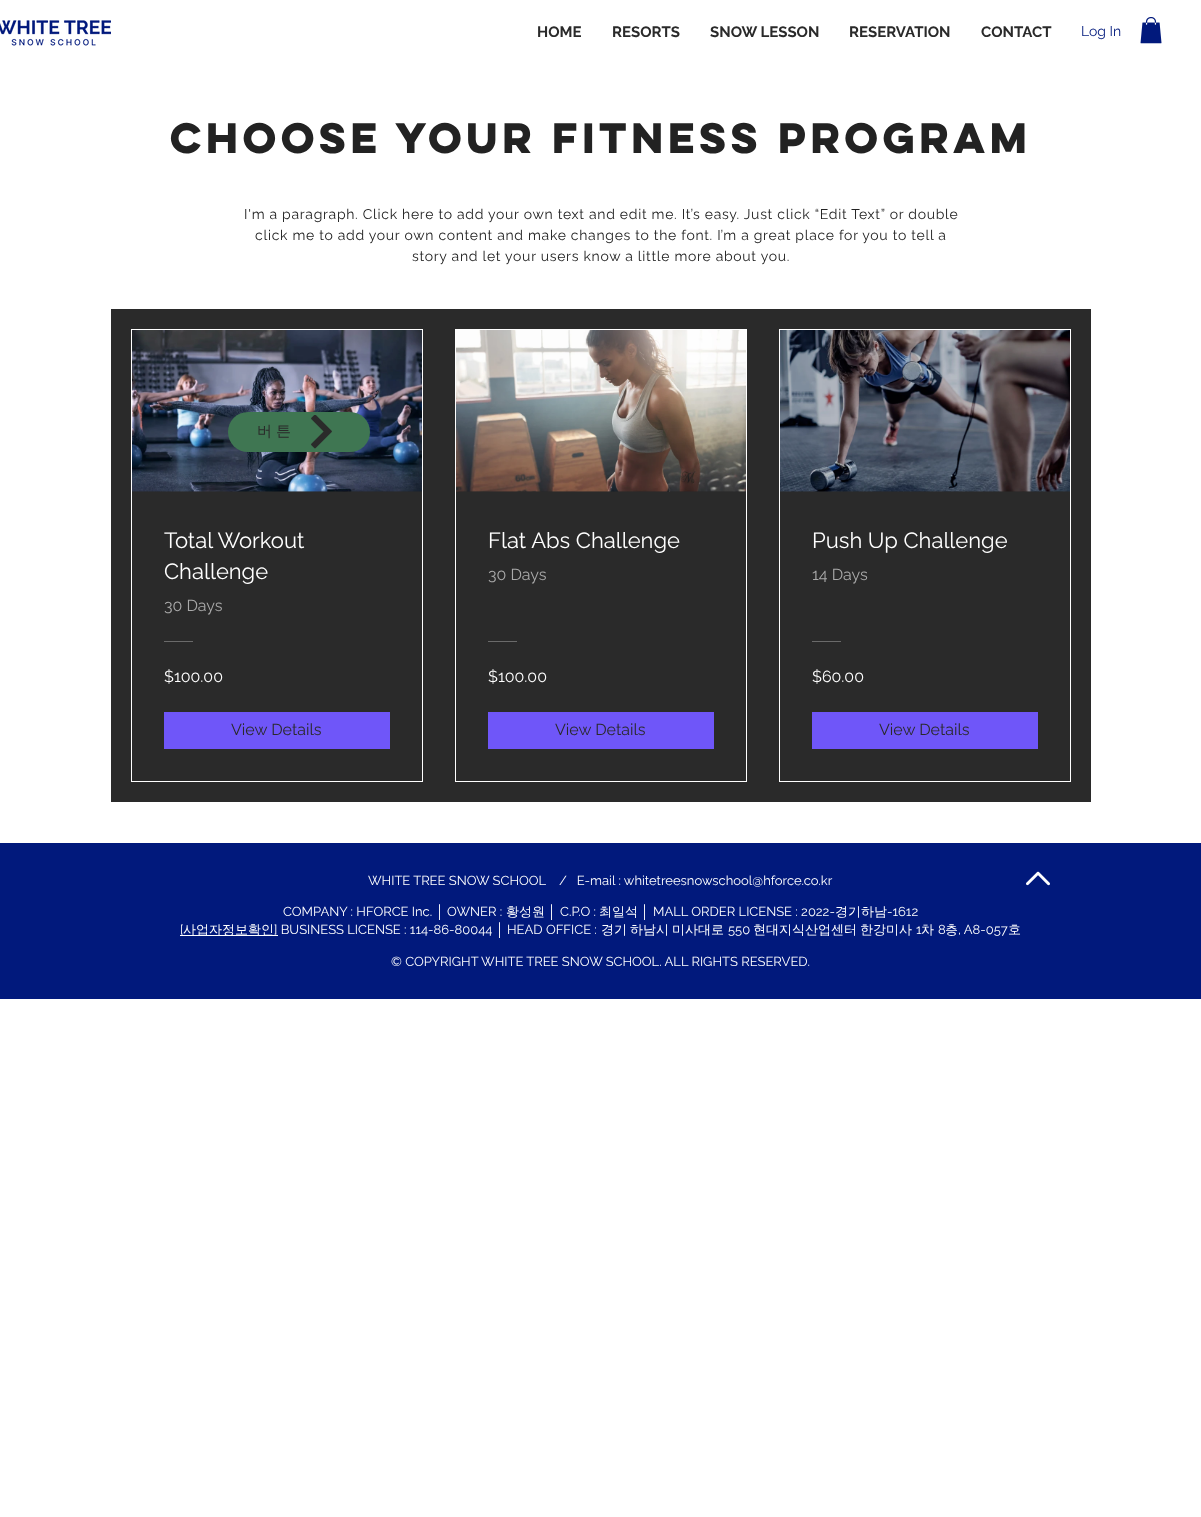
<svg xmlns="http://www.w3.org/2000/svg" width="1201" height="1517" viewBox="0 0 1201 1517">
  <style>
    .t1 { font: bold 15px Raleway; fill: #2a2a2a; }
    .t2 { font: 14px Raleway; fill: #01197c; }
    .t3 { font: bold 38px 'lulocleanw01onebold'; letter-spacing: -3.8px; fill: #222; }
    .t4 { font: 14px Raleway; letter-spacing: 0.7px; fill: #222; }
    .t5 { font: 500 15px WenQuanYi Zen Hei; letter-spacing: 4px; fill: #2a2a2a; }
    .t6 { font: 22px Raleway; fill: #fff; }
    .t7 { font: 16px Raleway; fill: #aaa; }
    .t8 { font: 16px Raleway; fill: #fff; }
    .t9 { font: 16px Raleway; fill: #2a2a2a; }
    .t10 { font: 13px Raleway; fill: #fff; }
    .t11 { font: 13px Liberation Sans; fill: #fff; }
    .t12 { font: 500 13px WenQuanYi Zen Hei; fill: #fff; }
  </style>
  <rect width="100%" height="100%" fill="#fff"/>
  <image x="0" y="20" width="111" height="26" href="images/1.png"/>
  <text x="537" y="37" class="t1">HOME</text>
  <text x="612" y="37" class="t1">RESORTS</text>
  <text x="710" y="37" class="t1">SNOW LESSON</text>
  <text x="849" y="37" class="t1">RESERVATION</text>
  <text x="981" y="37" class="t1">CONTACT</text>
  <text x="1081" y="36" class="t2">Log In</text>
  <image x="1140" y="17" width="22" height="27" href="images/2.png"/>
  <text x="170" y="153" class="t3">CHOOSE YOUR FITNESS PROGRAM</text>
  <text x="244" y="219" class="t4">I'm a paragraph. Click here to add your own text and edit me. It’s easy. Just click “Edit Text” or double</text>
  <text x="255" y="240" class="t4">click me to add your own content and make changes to the font. I’m a great place for you to tell a</text>
  <text x="412" y="261" class="t4">story and let your users know a little more about you.</text>
  <rect x="111" y="309" width="980" height="493" fill="#2a2a2a"/>
  <rect x="131.5" y="329.5" width="291" height="452" fill="none" stroke="#fff"/>
  <image x="132" y="330" width="290" height="162" href="images/4.png"/>
  <rect x="228" y="412" width="142" height="40" rx="20" fill="#3f7652"/>
  <text x="257" y="436" class="t5">버튼</text>
  <image x="311" y="415" width="21" height="34" href="images/3.png"/>
  <text x="164" y="548" class="t6">Total Workout</text>
  <text x="164" y="579" class="t6">Challenge</text>
  <text x="164" y="611" class="t7">30 Days</text>
  <rect x="164" y="641" width="29" height="1" fill="#6a6a6a"/>
  <text x="164" y="682" class="t8">$100.00</text>
  <rect x="164" y="712" width="226" height="37" fill="#6f56f9"/>
  <text x="231" y="735" class="t9">View Details</text>
  <rect x="455.5" y="329.5" width="291" height="452" fill="none" stroke="#fff"/>
  <image x="456" y="330" width="290" height="162" href="images/5.png"/>
  <text x="488" y="548" class="t6">Flat Abs Challenge</text>
  <text x="488" y="580" class="t7">30 Days</text>
  <rect x="488" y="641" width="29" height="1" fill="#6a6a6a"/>
  <text x="488" y="682" class="t8">$100.00</text>
  <rect x="488" y="712" width="226" height="37" fill="#6f56f9"/>
  <text x="555" y="735" class="t9">View Details</text>
  <rect x="779.5" y="329.5" width="291" height="452" fill="none" stroke="#fff"/>
  <image x="780" y="330" width="290" height="162" href="images/6.png"/>
  <text x="812" y="548" class="t6">Push Up Challenge</text>
  <text x="812" y="580" class="t7">14 Days</text>
  <rect x="812" y="641" width="29" height="1" fill="#6a6a6a"/>
  <text x="812" y="682" class="t8">$60.00</text>
  <rect x="812" y="712" width="226" height="37" fill="#6f56f9"/>
  <text x="879" y="735" class="t9">View Details</text>
  <rect x="0" y="843" width="1201" height="156" fill="#01197c"/>
  <text x="368" y="885" class="t10" xml:space="preserve">WHITE TREE SNOW SCHOOL    /   E-mail : whitetreesnowschool@hforce.co.kr</text>
  <text x="283" y="916" class="t10">COMPANY : HFORCE Inc.</text>
  <text x="436" y="916" class="t11">│</text>
  <text x="447" y="916" class="t10">OWNER :</text>
  <text x="506" y="916" class="t12">황성원</text>
  <text x="548" y="916" class="t11">│</text>
  <text x="560" y="916" class="t10">C.P.O :</text>
  <text x="599" y="916" class="t12">최일석</text>
  <text x="641" y="916" class="t11">│</text>
  <text x="653" y="916" class="t10">MALL ORDER LICENSE : 2022-</text>
  <text x="835" y="916" class="t12">경기하남</text>
  <text x="887" y="916" class="t10">-1612</text>
  <text x="180" y="934" class="t10">[</text>
  <rect x="180" y="935" width="98" height="1" fill="#fff"/>
  <text x="183" y="934" class="t12">사업자정보확인</text>
  <text x="274" y="934" class="t10">] BUSINESS LICENSE : 114-86-80044</text>
  <text x="496" y="934" class="t11">│</text>
  <text x="507" y="934" class="t10">HEAD OFFICE :</text>
  <text x="601" y="934" class="t12">경기</text>
  <text x="630" y="934" class="t12">하남시</text>
  <text x="672" y="934" class="t12">미사대로</text>
  <text x="728" y="934" class="t10">550</text>
  <text x="753" y="934" class="t12">현대지식산업센터</text>
  <text x="860" y="934" class="t12">한강미사</text>
  <text x="916" y="934" class="t10">1</text>
  <text x="921" y="934" class="t12">차</text>
  <text x="938" y="934" class="t10">8</text>
  <text x="945" y="934" class="t12">층</text>
  <text x="958" y="934" class="t10">, A8-057</text>
  <text x="1008" y="934" class="t12">호</text>
  <text x="391" y="966" class="t10">© COPYRIGHT WHITE TREE SNOW SCHOOL. ALL RIGHTS RESERVED.</text>
  <image x="1026" y="871" width="24" height="15" href="images/7.png"/>
</svg>
